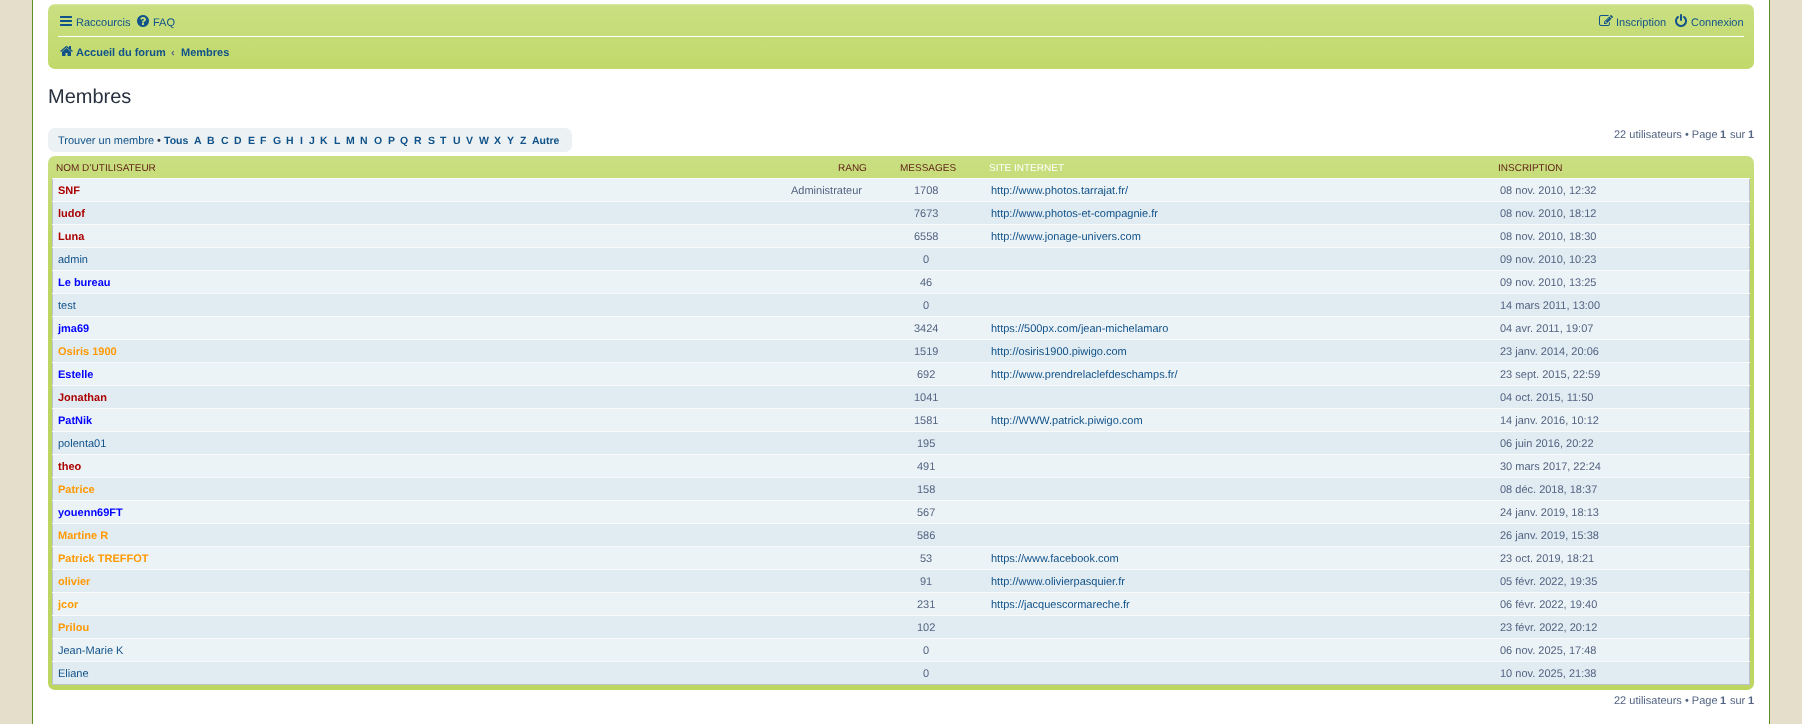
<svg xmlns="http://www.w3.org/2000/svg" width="1802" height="724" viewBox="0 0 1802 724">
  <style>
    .t1 { font: 11px Liberation Sans; fill: #105289; }
    .t2 { font: bold 11px Liberation Sans; fill: #105289; }
    .t3 { font: bold 11px Liberation Sans; fill: #536482; }
    .t4 { font: 20px Liberation Sans; fill: #28313f; }
    .t5 { font: 11px Liberation Sans; fill: #28313f; }
    .t6 { font: bold 10.5px Liberation Sans; fill: #105289; }
    .t7 { font: 11px Liberation Sans; fill: #536482; }
    .t8 { font: 10px Liberation Sans; fill: #5f1e16; }
    .t9 { font: 10px Liberation Sans; fill: #fff; }
    .t10 { font: bold 11px Liberation Sans; fill: #a00; }
    .t11 { font: bold 11px Liberation Sans; fill: #00f; }
    .t12 { font: bold 11px Liberation Sans; fill: #f90; }
  </style>
  <defs>
    <linearGradient id="g1" gradientUnits="userSpaceOnUse" x1="901" y1="4" x2="901" y2="96"><stop offset="0" stop-color="#dbe9a9"/><stop offset="0.02" stop-color="#cadf82"/><stop offset="1" stop-color="#bdd660"/></linearGradient>
    <linearGradient id="g2" gradientUnits="userSpaceOnUse" x1="901" y1="156" x2="901" y2="690"><stop offset="0" stop-color="#dbe9a9"/><stop offset="0" stop-color="#cadf82"/><stop offset="0.17" stop-color="#bdd660"/><stop offset="1" stop-color="#bdd660"/></linearGradient>
    <clipPath id="clip1"><rect x="991" y="184" width="499" height="12"/></clipPath>
    <clipPath id="clip2"><rect x="991" y="207" width="499" height="12"/></clipPath>
    <clipPath id="clip3"><rect x="991" y="230" width="499" height="12"/></clipPath>
    <clipPath id="clip4"><rect x="991" y="322" width="499" height="12"/></clipPath>
    <clipPath id="clip5"><rect x="991" y="345" width="499" height="12"/></clipPath>
    <clipPath id="clip6"><rect x="991" y="368" width="499" height="12"/></clipPath>
    <clipPath id="clip7"><rect x="991" y="414" width="499" height="12"/></clipPath>
    <clipPath id="clip8"><rect x="991" y="575" width="499" height="12"/></clipPath>
    <clipPath id="clip9"><rect x="991" y="598" width="499" height="12"/></clipPath>
  </defs>
  <rect width="100%" height="100%" fill="#e5deca"/>
  <rect x="32.5" y="-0.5" width="1737" height="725" fill="#fff" stroke="#609025"/>
  <rect x="48" y="4" width="1706" height="65" rx="7" fill="url(#g1)"/>
  <image x="60" y="16" width="12" height="10" href="images/1.png"/>
  <text x="76" y="26" class="t1">Raccourcis</text>
  <image x="137" y="15" width="12" height="12" href="images/2.png"/>
  <text x="153" y="26" class="t1">FAQ</text>
  <image x="1599" y="15" width="14" height="11" href="images/3.png"/>
  <text x="1616" y="26" class="t1">Inscription</text>
  <image x="1675" y="14" width="12" height="13" href="images/4.png"/>
  <text x="1691" y="26" class="t1">Connexion</text>
  <rect x="58" y="36" width="1686" height="1" fill="#fff"/>
  <image x="60" y="46" width="13" height="10" href="images/5.png"/>
  <text x="76" y="56" class="t2">Accueil du forum</text>
  <text x="171" y="56" class="t3">‹</text>
  <text x="181" y="56" class="t2">Membres</text>
  <text x="48" y="103" class="t4">Membres</text>
  <rect x="48" y="128" width="524" height="24" rx="7" fill="#ecf1f3"/>
  <text x="58" y="144" class="t1">Trouver un membre</text>
  <text x="157" y="144" class="t5">•</text>
  <text x="164" y="144" class="t6">Tous</text>
  <text x="194" y="144" class="t6">A</text>
  <text x="207" y="144" class="t6">B</text>
  <text x="221" y="144" class="t6">C</text>
  <text x="234" y="144" class="t6">D</text>
  <text x="248" y="144" class="t6">E</text>
  <text x="260" y="144" class="t6">F</text>
  <text x="273" y="144" class="t6">G</text>
  <text x="286" y="144" class="t6">H</text>
  <text x="300" y="144" class="t6">I</text>
  <text x="309" y="144" class="t6">J</text>
  <text x="320" y="144" class="t6">K</text>
  <text x="334" y="144" class="t6">L</text>
  <text x="346" y="144" class="t6">M</text>
  <text x="360" y="144" class="t6">N</text>
  <text x="374" y="144" class="t6">O</text>
  <text x="388" y="144" class="t6">P</text>
  <text x="400" y="144" class="t6">Q</text>
  <text x="414" y="144" class="t6">R</text>
  <text x="428" y="144" class="t6">S</text>
  <text x="440" y="144" class="t6">T</text>
  <text x="453" y="144" class="t6">U</text>
  <text x="466" y="144" class="t6">V</text>
  <text x="479" y="144" class="t6">W</text>
  <text x="494" y="144" class="t6">X</text>
  <text x="507" y="144" class="t6">Y</text>
  <text x="520" y="144" class="t6">Z</text>
  <text x="532" y="144" class="t6">Autre</text>
  <text x="1614" y="138" class="t7">22 utilisateurs • Page</text>
  <text x="1720" y="138" class="t3">1</text>
  <text x="1730" y="138" class="t7">sur</text>
  <text x="1748" y="138" class="t3">1</text>
  <rect x="48" y="156" width="1706" height="534" rx="7" fill="url(#g2)"/>
  <text x="56" y="171" class="t8">NOM D’UTILISATEUR</text>
  <text x="838" y="171" class="t8">RANG</text>
  <text x="900" y="171" class="t8">MESSAGES</text>
  <text x="989" y="171" class="t9">SITE INTERNET</text>
  <text x="1498" y="171" class="t8">INSCRIPTION</text>
  <rect x="53" y="179" width="1696" height="22" fill="#ecf3f7"/>
  <text x="58" y="194" class="t10">SNF</text>
  <text x="791" y="194" class="t7">Administrateur</text>
  <text x="914" y="194" class="t7">1708</text>
  <g clip-path="url(#clip1)">
    <text x="991" y="194" class="t1">http://www.photos.tarrajat.fr/</text>
  </g>
  <rect x="1749" y="178" width="1" height="507" fill="#bfc1cf"/>
  <rect x="52" y="684" width="1698" height="1" fill="#bfc1cf"/>
  <rect x="52" y="178" width="1" height="507" fill="#bfc1cf"/>
  <rect x="52" y="178" width="1698" height="1" fill="#fafafa"/>
  <text x="1500" y="194" class="t7">08 nov. 2010, 12:32</text>
  <rect x="53" y="202" width="1696" height="22" fill="#e1ebf2"/>
  <text x="58" y="217" class="t10">ludof</text>
  <text x="914" y="217" class="t7">7673</text>
  <g clip-path="url(#clip2)">
    <text x="991" y="217" class="t1">http://www.photos-et-compagnie.fr</text>
  </g>
  <rect x="52" y="201" width="1698" height="1" fill="#fafafa"/>
  <text x="1500" y="217" class="t7">08 nov. 2010, 18:12</text>
  <rect x="53" y="225" width="1696" height="22" fill="#ecf3f7"/>
  <text x="58" y="240" class="t10">Luna</text>
  <text x="914" y="240" class="t7">6558</text>
  <g clip-path="url(#clip3)">
    <text x="991" y="240" class="t1">http://www.jonage-univers.com</text>
  </g>
  <rect x="52" y="224" width="1698" height="1" fill="#fafafa"/>
  <text x="1500" y="240" class="t7">08 nov. 2010, 18:30</text>
  <rect x="53" y="248" width="1696" height="22" fill="#e1ebf2"/>
  <text x="58" y="263" class="t1">admin</text>
  <text x="923" y="263" class="t7">0</text>
  <rect x="52" y="247" width="1698" height="1" fill="#fafafa"/>
  <text x="1500" y="263" class="t7">09 nov. 2010, 10:23</text>
  <rect x="53" y="271" width="1696" height="22" fill="#ecf3f7"/>
  <text x="58" y="286" class="t11">Le bureau</text>
  <text x="920" y="286" class="t7">46</text>
  <rect x="52" y="270" width="1698" height="1" fill="#fafafa"/>
  <text x="1500" y="286" class="t7">09 nov. 2010, 13:25</text>
  <rect x="53" y="294" width="1696" height="22" fill="#e1ebf2"/>
  <text x="58" y="309" class="t1">test</text>
  <text x="923" y="309" class="t7">0</text>
  <rect x="52" y="293" width="1698" height="1" fill="#fafafa"/>
  <text x="1500" y="309" class="t7">14 mars 2011, 13:00</text>
  <rect x="53" y="317" width="1696" height="22" fill="#ecf3f7"/>
  <text x="58" y="332" class="t11">jma69</text>
  <text x="914" y="332" class="t7">3424</text>
  <g clip-path="url(#clip4)">
    <text x="991" y="332" class="t1">https://500px.com/jean-michelamaro</text>
  </g>
  <rect x="52" y="316" width="1698" height="1" fill="#fafafa"/>
  <text x="1500" y="332" class="t7">04 avr. 2011, 19:07</text>
  <rect x="53" y="340" width="1696" height="22" fill="#e1ebf2"/>
  <text x="58" y="355" class="t12">Osiris 1900</text>
  <text x="914" y="355" class="t7">1519</text>
  <g clip-path="url(#clip5)">
    <text x="991" y="355" class="t1">http://osiris1900.piwigo.com</text>
  </g>
  <rect x="52" y="339" width="1698" height="1" fill="#fafafa"/>
  <text x="1500" y="355" class="t7">23 janv. 2014, 20:06</text>
  <rect x="53" y="363" width="1696" height="22" fill="#ecf3f7"/>
  <text x="58" y="378" class="t11">Estelle</text>
  <text x="917" y="378" class="t7">692</text>
  <g clip-path="url(#clip6)">
    <text x="991" y="378" class="t1">http://www.prendrelaclefdeschamps.fr/</text>
  </g>
  <rect x="52" y="362" width="1698" height="1" fill="#fafafa"/>
  <text x="1500" y="378" class="t7">23 sept. 2015, 22:59</text>
  <rect x="53" y="386" width="1696" height="22" fill="#e1ebf2"/>
  <text x="58" y="401" class="t10">Jonathan</text>
  <text x="914" y="401" class="t7">1041</text>
  <rect x="52" y="385" width="1698" height="1" fill="#fafafa"/>
  <text x="1500" y="401" class="t7">04 oct. 2015, 11:50</text>
  <rect x="53" y="409" width="1696" height="22" fill="#ecf3f7"/>
  <text x="58" y="424" class="t11">PatNik</text>
  <text x="914" y="424" class="t7">1581</text>
  <g clip-path="url(#clip7)">
    <text x="991" y="424" class="t1">http://WWW.patrick.piwigo.com</text>
  </g>
  <rect x="52" y="408" width="1698" height="1" fill="#fafafa"/>
  <text x="1500" y="424" class="t7">14 janv. 2016, 10:12</text>
  <rect x="53" y="432" width="1696" height="22" fill="#e1ebf2"/>
  <text x="58" y="447" class="t1">polenta01</text>
  <text x="917" y="447" class="t7">195</text>
  <rect x="52" y="431" width="1698" height="1" fill="#fafafa"/>
  <text x="1500" y="447" class="t7">06 juin 2016, 20:22</text>
  <rect x="53" y="455" width="1696" height="22" fill="#ecf3f7"/>
  <text x="58" y="470" class="t10">theo</text>
  <text x="917" y="470" class="t7">491</text>
  <rect x="52" y="454" width="1698" height="1" fill="#fafafa"/>
  <text x="1500" y="470" class="t7">30 mars 2017, 22:24</text>
  <rect x="53" y="478" width="1696" height="22" fill="#e1ebf2"/>
  <text x="58" y="493" class="t12">Patrice</text>
  <text x="917" y="493" class="t7">158</text>
  <rect x="52" y="477" width="1698" height="1" fill="#fafafa"/>
  <text x="1500" y="493" class="t7">08 déc. 2018, 18:37</text>
  <rect x="53" y="501" width="1696" height="22" fill="#ecf3f7"/>
  <text x="58" y="516" class="t11">youenn69FT</text>
  <text x="917" y="516" class="t7">567</text>
  <rect x="52" y="500" width="1698" height="1" fill="#fafafa"/>
  <text x="1500" y="516" class="t7">24 janv. 2019, 18:13</text>
  <rect x="53" y="524" width="1696" height="22" fill="#e1ebf2"/>
  <text x="58" y="539" class="t12">Martine R</text>
  <text x="917" y="539" class="t7">586</text>
  <rect x="52" y="523" width="1698" height="1" fill="#fafafa"/>
  <text x="1500" y="539" class="t7">26 janv. 2019, 15:38</text>
  <rect x="53" y="547" width="1696" height="22" fill="#ecf3f7"/>
  <text x="58" y="562" class="t12">Patrick TREFFOT</text>
  <text x="920" y="562" class="t7">53</text>
  <text x="991" y="562" class="t1">https://www.facebook.com</text>
  <rect x="52" y="546" width="1698" height="1" fill="#fafafa"/>
  <text x="1500" y="562" class="t7">23 oct. 2019, 18:21</text>
  <rect x="53" y="570" width="1696" height="22" fill="#e1ebf2"/>
  <text x="58" y="585" class="t12">olivier</text>
  <text x="920" y="585" class="t7">91</text>
  <g clip-path="url(#clip8)">
    <text x="991" y="585" class="t1">http://www.olivierpasquier.fr</text>
  </g>
  <rect x="52" y="569" width="1698" height="1" fill="#fafafa"/>
  <text x="1500" y="585" class="t7">05 févr. 2022, 19:35</text>
  <rect x="53" y="593" width="1696" height="22" fill="#ecf3f7"/>
  <text x="58" y="608" class="t12">jcor</text>
  <text x="917" y="608" class="t7">231</text>
  <g clip-path="url(#clip9)">
    <text x="991" y="608" class="t1">https://jacquescormareche.fr</text>
  </g>
  <rect x="52" y="592" width="1698" height="1" fill="#fafafa"/>
  <text x="1500" y="608" class="t7">06 févr. 2022, 19:40</text>
  <rect x="53" y="616" width="1696" height="22" fill="#e1ebf2"/>
  <text x="58" y="631" class="t12">Prilou</text>
  <text x="917" y="631" class="t7">102</text>
  <rect x="52" y="615" width="1698" height="1" fill="#fafafa"/>
  <text x="1500" y="631" class="t7">23 févr. 2022, 20:12</text>
  <rect x="53" y="639" width="1696" height="22" fill="#ecf3f7"/>
  <text x="58" y="654" class="t1">Jean-Marie K</text>
  <text x="923" y="654" class="t7">0</text>
  <rect x="52" y="638" width="1698" height="1" fill="#fafafa"/>
  <text x="1500" y="654" class="t7">06 nov. 2025, 17:48</text>
  <rect x="53" y="662" width="1696" height="22" fill="#e1ebf2"/>
  <text x="58" y="677" class="t1">Eliane</text>
  <text x="923" y="677" class="t7">0</text>
  <rect x="52" y="661" width="1698" height="1" fill="#fafafa"/>
  <text x="1500" y="677" class="t7">10 nov. 2025, 21:38</text>
  <text x="1614" y="704" class="t7">22 utilisateurs • Page</text>
  <text x="1720" y="704" class="t3">1</text>
  <text x="1730" y="704" class="t7">sur</text>
  <text x="1748" y="704" class="t3">1</text>
</svg>
